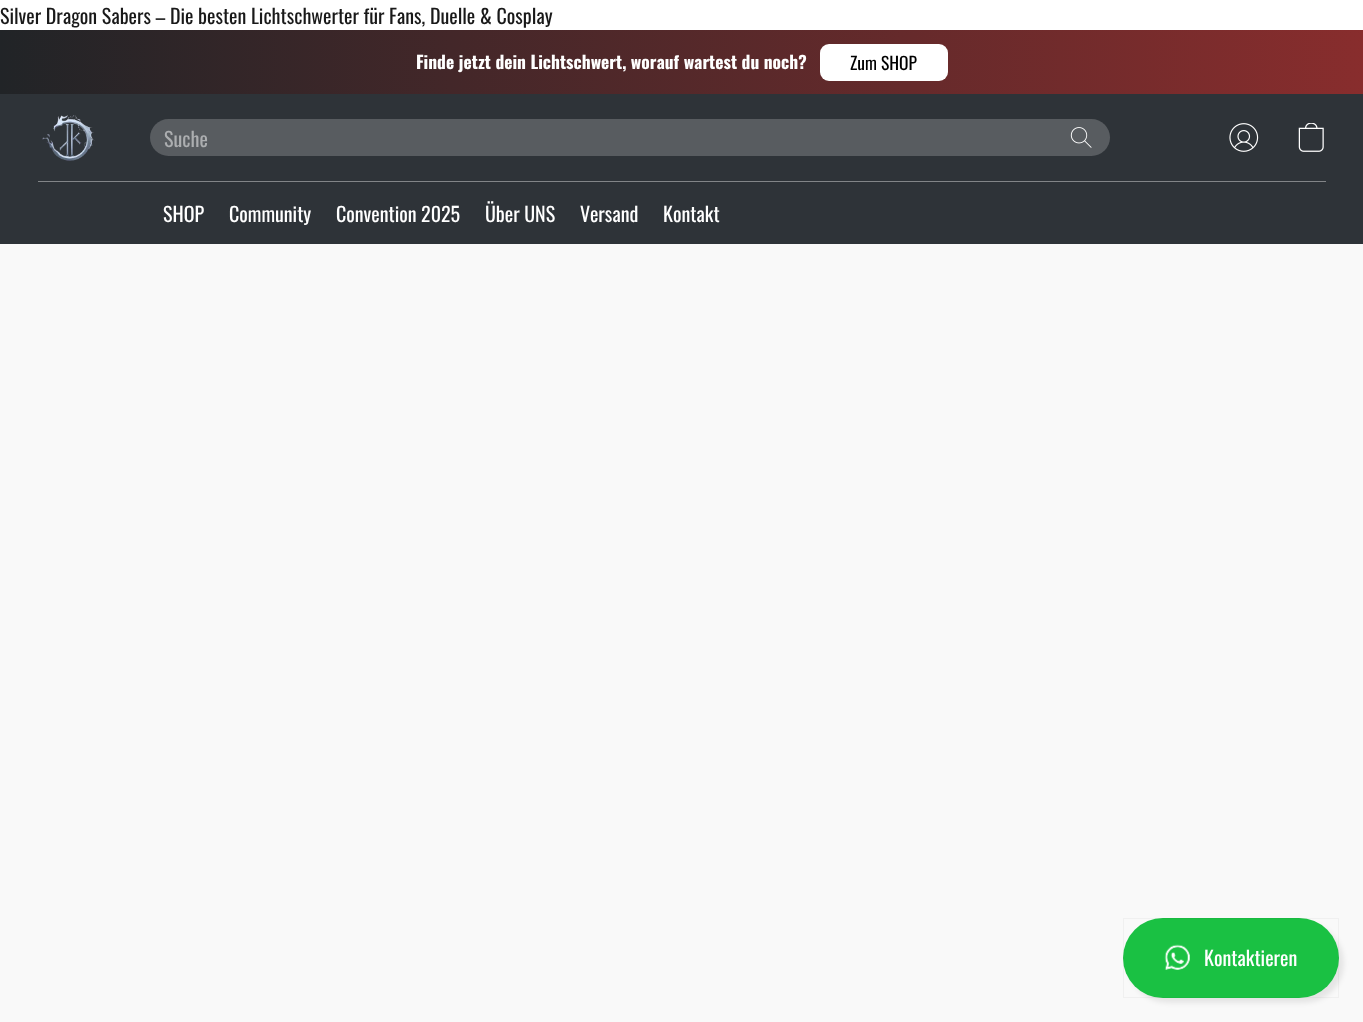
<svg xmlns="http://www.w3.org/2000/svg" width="1363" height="1022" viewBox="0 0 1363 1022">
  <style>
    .t1 { font: 20px Oswald; fill: #191919; }
    .t2 { font: bold 17.5px Oswald; fill: #fff; }
    .t3 { font: 17.5px Oswald; fill: #000; }
    .t4 { font: 20px Oswald; fill: #acaeb0; }
    .t5 { font: 20px Oswald; fill: #fff; }
  </style>
  <defs>
    <linearGradient id="g1" gradientUnits="userSpaceOnUse" x1="0" y1="62" x2="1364" y2="62"><stop offset="0" stop-color="#212427"/><stop offset="1" stop-color="#882d2d"/></linearGradient>
  </defs>
  <rect width="100%" height="100%" fill="#fff"/>
  <text x="0" y="24" class="t1">Silver Dragon Sabers – Die besten Lichtschwerter für Fans, Duelle &amp; Cosplay</text>
  <rect x="0" y="244" width="1363" height="778" fill="#f9f9f9"/>
  <rect x="0" y="30" width="1363" height="64" fill="url(#g1)"/>
  <text x="416" y="69" class="t2">Finde jetzt dein Lichtschwert, worauf wartest du noch?</text>
  <rect x="820" y="44" width="128" height="37" rx="9" fill="#fff"/>
  <text x="850" y="70" class="t3">Zum SHOP</text>
  <rect x="0" y="94" width="1363" height="150" fill="#2e3338"/>
  <image x="42" y="115" width="53" height="46" href="images/1.png"/>
  <rect x="150" y="119" width="960" height="37" rx="18.5" fill="#585c60"/>
  <text x="164" y="147" class="t4">Suche</text>
  <image x="1070" y="127" width="22" height="21" href="images/2.png"/>
  <image x="1229" y="123" width="30" height="29" href="images/3.png"/>
  <image x="1298" y="123" width="26" height="29" href="images/4.png"/>
  <rect x="38" y="181" width="1288" height="1" fill="#828588"/>
  <text x="163" y="222" class="t5">SHOP</text>
  <text x="229" y="222" class="t5">Community</text>
  <text x="336" y="222" class="t5">Convention 2025</text>
  <text x="485" y="222" class="t5">Über UNS</text>
  <text x="580" y="222" class="t5">Versand</text>
  <text x="663" y="222" class="t5">Kontakt</text>
  <rect x="1128" y="923" width="216" height="80" rx="40" fill="#00000014" filter="blur(2.5px)"/>
  <rect x="1123" y="918" width="216" height="80" rx="40" fill="#1ac143"/>
  <rect x="1123.5" y="918.5" width="215" height="79" fill="none" stroke="#1616160a"/>
  <image x="1164" y="944" width="26" height="26" href="images/5.png"/>
  <text x="1204" y="966" class="t5">Kontaktieren</text>
</svg>
